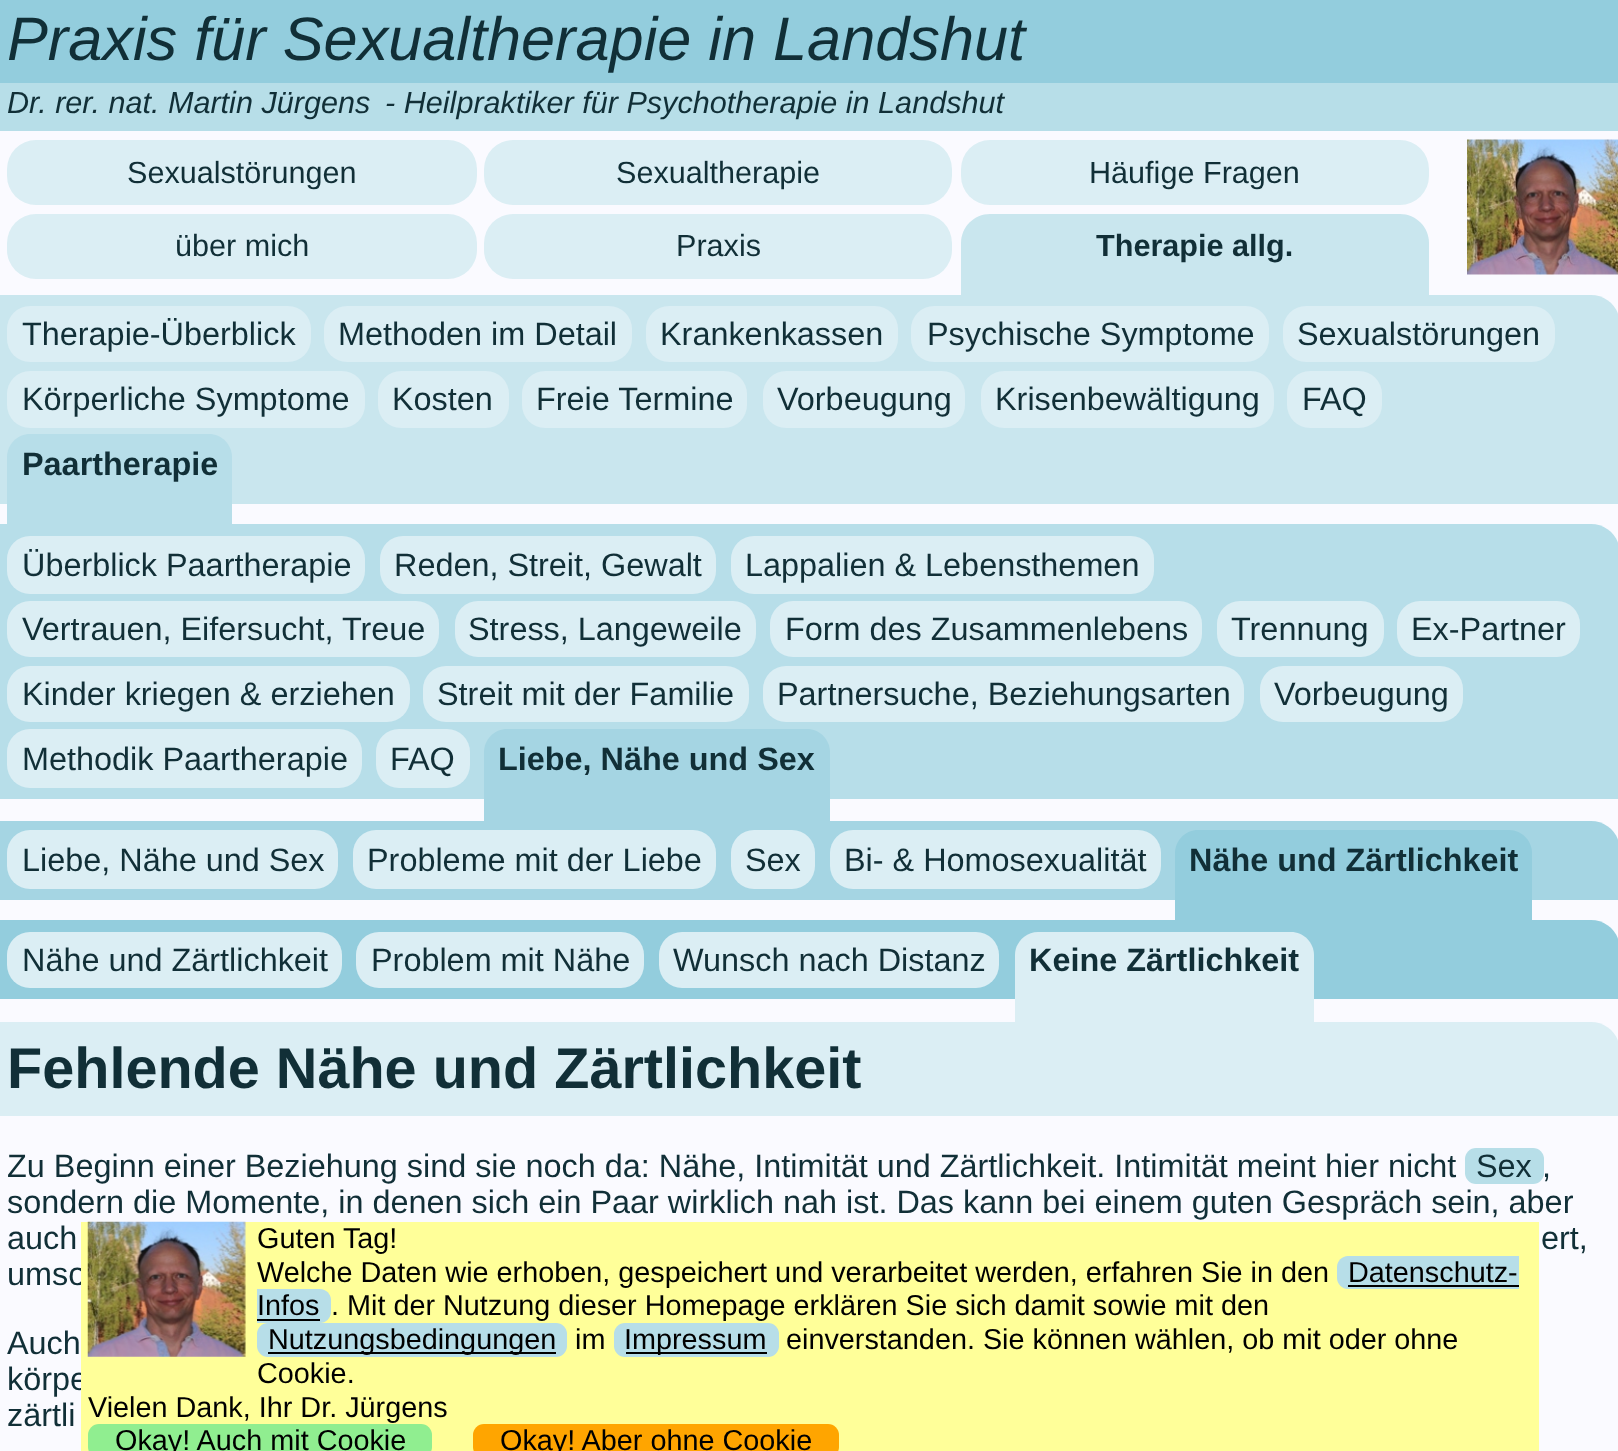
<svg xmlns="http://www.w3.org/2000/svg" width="1618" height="1451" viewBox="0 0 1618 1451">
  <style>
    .t1 { font: italic 61.25px Liberation Sans; fill: #112f37; }
    .t2 { font: italic 30.6px Liberation Sans; fill: #112f37; }
    .t3 { font: 30.6px Liberation Sans; fill: #112f37; }
    .t4 { font: bold 30.6px Liberation Sans; fill: #112f37; }
    .t5 { font: 32.4px Liberation Sans; fill: #112f37; }
    .t6 { font: bold 32.4px Liberation Sans; fill: #112f37; }
    .t7 { font: bold 57.6px Liberation Sans; fill: #112f37; }
    .t8 { font: 28.8px Liberation Sans; fill: #000; }
  </style>
  <rect width="100%" height="100%" fill="#fafaff"/>
  <rect x="0" y="0" width="1618" height="83" fill="#93cddd"/>
  <text x="7" y="60" class="t1">Praxis für Sexualtherapie in Landshut</text>
  <rect x="0" y="83" width="1618" height="48" fill="#b7dee8"/>
  <text x="7" y="113" class="t2">Dr. rer. nat. Martin Jürgens</text>
  <text x="385" y="113" class="t2">- Heilpraktiker für Psychotherapie in Landshut</text>
  <image x="1467" y="139" width="151" height="136" href="images/1.png"/>
  <rect x="7" y="140" width="470" height="65" rx="29" fill="#dbeef4"/>
  <text x="127" y="183" class="t3">Sexualstörungen</text>
  <rect x="484" y="140" width="468" height="65" rx="29" fill="#dbeef4"/>
  <text x="616" y="183" class="t3">Sexualtherapie</text>
  <rect x="961" y="140" width="468" height="65" rx="29" fill="#dbeef4"/>
  <text x="1089" y="183" class="t3">Häufige Fragen</text>
  <rect x="7" y="214" width="470" height="65" rx="29" fill="#dbeef4"/>
  <text x="175" y="256" class="t3">über mich</text>
  <rect x="484" y="214" width="468" height="65" rx="29" fill="#dbeef4"/>
  <text x="676" y="256" class="t3">Praxis</text>
  <path d="M0 295H1591C1607 295 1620 308 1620 324V504H0Z" fill="#c9e6ee"/>
  <path d="M990 214H1400C1416 214 1429 227 1429 243V297H961V243C961 227 974 214 990 214Z" fill="#c9e6ee"/>
  <text x="1096" y="256" class="t4">Therapie allg.</text>
  <rect x="7" y="306" width="304" height="56" rx="23" fill="#dbeef4"/>
  <text x="22" y="345" class="t5">Therapie-Überblick</text>
  <rect x="324" y="306" width="308" height="56" rx="23" fill="#dbeef4"/>
  <text x="338" y="345" class="t5">Methoden im Detail</text>
  <rect x="646" y="306" width="252" height="56" rx="23" fill="#dbeef4"/>
  <text x="660" y="345" class="t5">Krankenkassen</text>
  <rect x="911" y="306" width="358" height="56" rx="23" fill="#dbeef4"/>
  <text x="927" y="345" class="t5">Psychische Symptome</text>
  <rect x="1283" y="306" width="272" height="56" rx="23" fill="#dbeef4"/>
  <text x="1297" y="345" class="t5">Sexualstörungen</text>
  <rect x="7" y="371" width="358" height="57" rx="23" fill="#dbeef4"/>
  <text x="22" y="410" class="t5">Körperliche Symptome</text>
  <rect x="378" y="371" width="131" height="57" rx="23" fill="#dbeef4"/>
  <text x="392" y="410" class="t5">Kosten</text>
  <rect x="522" y="371" width="225" height="57" rx="23" fill="#dbeef4"/>
  <text x="536" y="410" class="t5">Freie Termine</text>
  <rect x="763" y="371" width="202" height="57" rx="23" fill="#dbeef4"/>
  <text x="777" y="410" class="t5">Vorbeugung</text>
  <rect x="981" y="371" width="293" height="57" rx="23" fill="#dbeef4"/>
  <text x="995" y="410" class="t5">Krisenbewältigung</text>
  <rect x="1287" y="371" width="95" height="57" rx="23" fill="#dbeef4"/>
  <text x="1302" y="410" class="t5">FAQ</text>
  <path d="M0 524H1591C1607 524 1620 537 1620 553V799H0Z" fill="#b7dee9"/>
  <path d="M30 434H209C221.5 434 232 444.5 232 457V529H7V457C7 444.5 17.5 434 30 434Z" fill="#b7dee9"/>
  <text x="22" y="475" class="t6">Paartherapie</text>
  <rect x="7" y="536" width="358" height="58" rx="23" fill="#dbeef4"/>
  <text x="22" y="576" class="t5">Überblick Paartherapie</text>
  <rect x="380" y="536" width="336" height="58" rx="23" fill="#dbeef4"/>
  <text x="394" y="576" class="t5">Reden, Streit, Gewalt</text>
  <rect x="731" y="536" width="423" height="58" rx="23" fill="#dbeef4"/>
  <text x="745" y="576" class="t5">Lappalien &amp; Lebensthemen</text>
  <rect x="7" y="601" width="432" height="56" rx="23" fill="#dbeef4"/>
  <text x="22" y="640" class="t5">Vertrauen, Eifersucht, Treue</text>
  <rect x="455" y="601" width="301" height="56" rx="23" fill="#dbeef4"/>
  <text x="468" y="640" class="t5">Stress, Langeweile</text>
  <rect x="770" y="601" width="432" height="56" rx="23" fill="#dbeef4"/>
  <text x="785" y="640" class="t5">Form des Zusammenlebens</text>
  <rect x="1217" y="601" width="167" height="56" rx="23" fill="#dbeef4"/>
  <text x="1231" y="640" class="t5">Trennung</text>
  <rect x="1397" y="601" width="183" height="56" rx="23" fill="#dbeef4"/>
  <text x="1411" y="640" class="t5">Ex-Partner</text>
  <rect x="7" y="666" width="403" height="56" rx="23" fill="#dbeef4"/>
  <text x="22" y="705" class="t5">Kinder kriegen &amp; erziehen</text>
  <rect x="423" y="666" width="326" height="56" rx="23" fill="#dbeef4"/>
  <text x="437" y="705" class="t5">Streit mit der Familie</text>
  <rect x="763" y="666" width="481" height="56" rx="23" fill="#dbeef4"/>
  <text x="777" y="705" class="t5">Partnersuche, Beziehungsarten</text>
  <rect x="1260" y="666" width="203" height="56" rx="23" fill="#dbeef4"/>
  <text x="1274" y="705" class="t5">Vorbeugung</text>
  <rect x="7" y="729" width="355" height="59" rx="23" fill="#dbeef4"/>
  <text x="22" y="770" class="t5">Methodik Paartherapie</text>
  <rect x="376" y="729" width="94" height="59" rx="23" fill="#dbeef4"/>
  <text x="390" y="770" class="t5">FAQ</text>
  <path d="M0 821H1591C1607 821 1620 834 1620 850V900H0Z" fill="#a5d5e3"/>
  <path d="M507 729H807C819.5 729 830 739.5 830 752V824H484V752C484 739.5 494.5 729 507 729Z" fill="#a5d5e3"/>
  <text x="498" y="770" class="t6">Liebe, Nähe und Sex</text>
  <rect x="7" y="830" width="331" height="59" rx="23" fill="#dbeef4"/>
  <text x="22" y="871" class="t5">Liebe, Nähe und Sex</text>
  <rect x="353" y="830" width="363" height="59" rx="23" fill="#dbeef4"/>
  <text x="367" y="871" class="t5">Probleme mit der Liebe</text>
  <rect x="731" y="830" width="84" height="59" rx="23" fill="#dbeef4"/>
  <text x="745" y="871" class="t5">Sex</text>
  <rect x="830" y="830" width="331" height="59" rx="23" fill="#dbeef4"/>
  <text x="844" y="871" class="t5">Bi- &amp; Homosexualität</text>
  <path d="M0 920H1591C1607 920 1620 933 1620 949V999H0Z" fill="#93cddd"/>
  <path d="M1198 830H1509C1521.5 830 1532 840.5 1532 853V925H1175V853C1175 840.5 1185.5 830 1198 830Z" fill="#93cddd"/>
  <text x="1189" y="871" class="t6">Nähe und Zärtlichkeit</text>
  <rect x="7" y="932" width="335" height="56" rx="23" fill="#dbeef4"/>
  <text x="22" y="971" class="t5">Nähe und Zärtlichkeit</text>
  <rect x="356" y="932" width="288" height="56" rx="23" fill="#dbeef4"/>
  <text x="371" y="971" class="t5">Problem mit Nähe</text>
  <rect x="659" y="932" width="340" height="56" rx="23" fill="#dbeef4"/>
  <text x="673" y="971" class="t5">Wunsch nach Distanz</text>
  <path d="M0 1022H1591C1607 1022 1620 1035 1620 1051V1116H0Z" fill="#dbeef4"/>
  <path d="M1038 932H1291C1303.5 932 1314 942.5 1314 955V1024H1015V955C1015 942.5 1025.5 932 1038 932Z" fill="#dbeef4"/>
  <text x="1029" y="971" class="t6">Keine Zärtlichkeit</text>
  <text x="7" y="1088" class="t7">Fehlende Nähe und Zärtlichkeit</text>
  <text x="7" y="1177" class="t5">Zu Beginn einer Beziehung sind sie noch da: Nähe, Intimität und Zärtlichkeit. Intimität meint hier nicht</text>
  <rect x="1465" y="1148" width="79" height="36" rx="11" fill="#b7dee8"/>
  <text x="1476" y="1177" class="t5">Sex</text>
  <text x="1542" y="1177" class="t5">,</text>
  <text x="7" y="1213" class="t5">sondern die Momente, in denen sich ein Paar wirklich nah ist. Das kann bei einem guten Gespräch sein, aber</text>
  <text x="7" y="1249" class="t5">auch</text>
  <text x="1541" y="1249" class="t5">ert,</text>
  <text x="7" y="1285" class="t5">umso</text>
  <text x="7" y="1354" class="t5">Auch</text>
  <text x="7" y="1390" class="t5">körpe</text>
  <text x="7" y="1426" class="t5">zärtli</text>
  <rect x="81" y="1222" width="1458" height="229" fill="#ff9"/>
  <image x="87" y="1221" width="159" height="136" href="images/2.png"/>
  <text x="257" y="1248" class="t8">Guten Tag!</text>
  <text x="257" y="1282" class="t8">Welche Daten wie erhoben, gespeichert und verarbeitet werden, erfahren Sie in den</text>
  <path d="M1348 1256H1519V1289H1348C1342 1289 1337 1284 1337 1278V1267C1337 1261 1342 1256 1348 1256Z" fill="#b7dee8"/>
  <text x="1348" y="1282" class="t8">Datenschutz-</text>
  <rect x="1348" y="1285" width="171" height="2" fill="#000"/>
  <path d="M257 1289H320C326 1289 331 1294 331 1300V1312C331 1318 326 1323 320 1323H257Z" fill="#b7dee8"/>
  <text x="257" y="1315" class="t8">Infos</text>
  <rect x="257" y="1319" width="63" height="2" fill="#000"/>
  <text x="331" y="1315" class="t8">. Mit der Nutzung dieser Homepage erklären Sie sich damit sowie mit den</text>
  <rect x="257" y="1323" width="310" height="34" rx="11" fill="#b7dee8"/>
  <rect x="268" y="1352" width="288" height="2" fill="#000"/>
  <text x="268" y="1349" class="t8">Nutzungsbedingungen</text>
  <text x="575" y="1349" class="t8">im</text>
  <rect x="614" y="1323" width="165" height="34" rx="11" fill="#b7dee8"/>
  <rect x="626" y="1352" width="141" height="2" fill="#000"/>
  <text x="624" y="1349" class="t8">Impressum</text>
  <text x="786" y="1349" class="t8">einverstanden. Sie können wählen, ob mit oder ohne</text>
  <text x="257" y="1383" class="t8">Cookie.</text>
  <text x="88" y="1417" class="t8">Vielen Dank, Ihr Dr. Jürgens</text>
  <rect x="88" y="1424" width="344" height="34" rx="11" fill="#90ee90"/>
  <text x="115" y="1450" class="t8">Okay! Auch mit Cookie</text>
  <rect x="473" y="1424" width="366" height="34" rx="11" fill="#ffa500"/>
  <text x="500" y="1450" class="t8">Okay! Aber ohne Cookie</text>
</svg>
